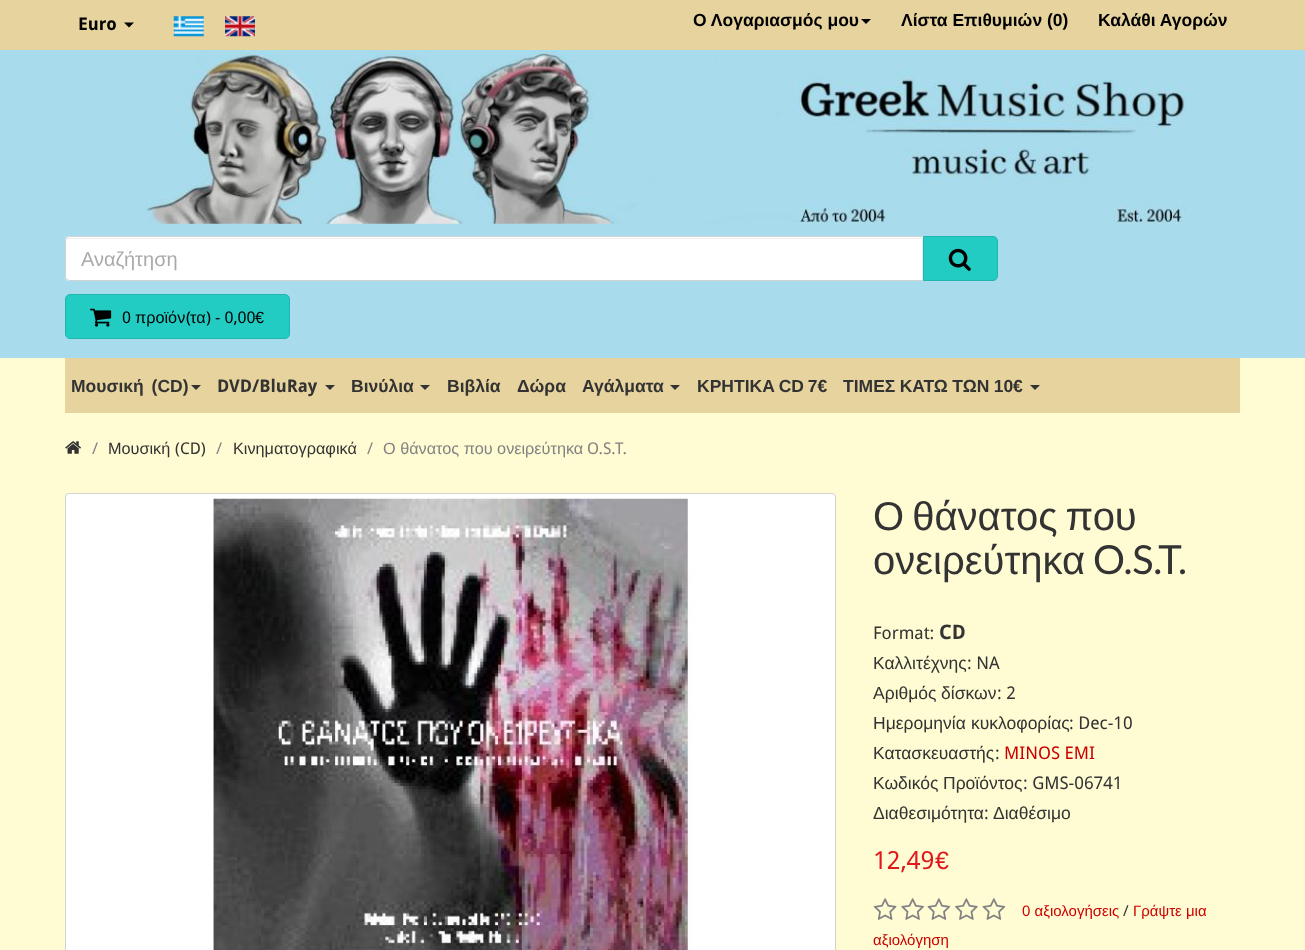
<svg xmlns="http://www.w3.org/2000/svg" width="1305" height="950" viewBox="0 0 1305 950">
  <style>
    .t1 { font: bold 17.5px Droid Sans; fill: #000; }
    .t2 { font: bold 17.5px Liberation Sans; fill: #000; }
    .t3 { font: 20px Liberation Sans; fill: #aaa; }
    .t4 { font: 16.25px Droid Sans; fill: #000; }
    .t5 { font: 16.25px Liberation Sans; fill: #000; }
    .t6 { font: bold 17.5px Liberation Sans; fill: #333; }
    .t7 { font: bold 17.5px Droid Sans; fill: #333; }
    .t8 { font: 16.25px Droid Sans; fill: #828282; }
    .t9 { font: 16.25px Liberation Sans; fill: #333; }
    .t10 { font: 16.25px Droid Sans; fill: #333; }
    .t11 { font: 16.25px Liberation Sans; fill: #828282; }
    .t12 { font: 40px Liberation Sans; fill: #333; }
    .t13 { font: 40px Lato; fill: #333; }
    .t14 { font: 17.5px Droid Sans; fill: #333; }
    .t15 { font: bold 20px Droid Sans; fill: #333; }
    .t16 { font: 17.5px Liberation Sans; fill: #333; }
    .t17 { font: 17.5px Droid Sans; fill: #c00; }
    .t18 { font: 25px Droid Sans; fill: #dd191d; }
    .t19 { font: 25px Liberation Sans; fill: #dd191d; }
    .t20 { font: 15px Liberation Sans; fill: #c00; }
    .t21 { font: 15px Droid Sans; fill: #333; }
  </style>
  <rect width="100%" height="100%" fill="#fffbd3"/>
  <rect x="0" y="0" width="1305" height="50" fill="#e6d39d"/>
  <text x="78" y="30" class="t1">Euro</text>
  <path d="M124 22.5H134L129 27.5Z" fill="#000"/>
  <image x="173" y="16" width="31" height="21" href="images/1.png"/>
  <image x="225" y="16" width="30" height="21" href="images/2.png"/>
  <text x="693" y="26" class="t2">Ο Λογαριασμός μου</text>
  <path d="M861 19H871L866 24Z" fill="#000"/>
  <text x="901" y="26" class="t2">Λίστα Επιθυμιών (0)</text>
  <text x="1098" y="26" class="t2">Καλάθι Αγορών</text>
  <rect x="0" y="50" width="1305" height="308" fill="#a8dced"/>
  <image x="146" y="50" width="1041" height="174" href="images/3.png"/>
  <path d="M70 236H924V281H70C67 281 65 279 65 276V241C65 238 67 236 70 236Z" fill="#fff"/>
  <path d="M70 239H922V280H923V238H70C68 238 66 240 66 242C66 240 68 239 70 239Z" fill="#ececec"/>
  <path d="M70 236.5H923.5V280.5H70C67.5 280.5 65.5 278.5 65.5 276V241C65.5 238.5 67.5 236.5 70 236.5Z" fill="none" stroke="#d2d2d2"/>
  <text x="81" y="266" class="t3">Αναζήτηση</text>
  <path d="M923.5 236.5H993C995.5 236.5 997.5 238.5 997.5 241V276C997.5 278.5 995.5 280.5 993 280.5H923.5Z" fill="#23ccc3" stroke="#1fb6ae"/>
  <image x="948" y="248" width="23" height="23" href="images/4.png"/>
  <rect x="65.5" y="294.5" width="224" height="44" rx="4.5" fill="#23ccc3" stroke="#1fb6ae"/>
  <image x="90" y="308" width="22" height="19" href="images/5.png"/>
  <text x="122" y="323" class="t4">0</text>
  <text x="135" y="323" class="t5">προϊόν</text>
  <text x="186" y="323" class="t4">(</text>
  <text x="190" y="323" class="t5">τα</text>
  <text x="206" y="323" class="t4">) - 0,00</text>
  <text x="255" y="323" class="t5">€</text>
  <rect x="65" y="358" width="1175" height="55" fill="#e6d39d"/>
  <text x="71" y="392" word-spacing="3" class="t6">Μουσική (CD)</text>
  <path d="M191 385H201L196 390Z" fill="#333"/>
  <text x="217" y="392" class="t7">DVD/BluRay</text>
  <path d="M325 385H335L330 390Z" fill="#333"/>
  <text x="351" y="392" class="t6">Βινύλια</text>
  <path d="M420 385H430L425 390Z" fill="#333"/>
  <text x="447" y="392" class="t6">Βιβλία</text>
  <text x="517" y="392" class="t6">Δώρα</text>
  <text x="582" y="392" class="t6">Αγάλματα</text>
  <path d="M670 385H680L675 390Z" fill="#333"/>
  <text x="697" y="392" word-spacing="-1" class="t6">ΚΡΗΤΙΚΑ CD 7€</text>
  <text x="843" y="392" word-spacing="-0.5" class="t6">ΤΙΜΕΣ ΚΑΤΩ ΤΩΝ 10€</text>
  <path d="M1030 385H1040L1035 390Z" fill="#333"/>
  <image x="65" y="441" width="16" height="13" href="images/6.png"/>
  <text x="92" y="454" class="t8">/</text>
  <text x="108" y="454" class="t9">Μουσική</text>
  <text x="175" y="454" class="t10">(CD)</text>
  <text x="216" y="454" class="t8">/</text>
  <text x="233" y="454" class="t9">Κινηματογραφικά</text>
  <text x="367" y="454" class="t8">/</text>
  <text x="383" y="454" class="t11">Ο θάνατος που ονειρεύτηκα</text>
  <text x="587" y="454" class="t8">O.S.T.</text>
  <rect x="65.5" y="493.5" width="770" height="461" rx="3.5" fill="#fff" stroke="#d2d2d2"/>
  <image x="213" y="498" width="480" height="452" href="images/7.png"/>
  <text x="873" y="530" word-spacing="-3" class="t12">Ο θάνατος που</text>
  <text x="873" y="574" class="t12">ονειρεύτηκα</text>
  <text x="1093" y="574" class="t13">O.S.T.</text>
  <text x="873" y="639" class="t14">Format:</text>
  <text x="939" y="639" class="t15">CD</text>
  <text x="873" y="669" class="t16">Καλλιτέχνης</text>
  <text x="967" y="669" class="t14">: NA</text>
  <text x="873" y="699" class="t16">Αριθμός</text>
  <text x="941" y="699" class="t16">δίσκων</text>
  <text x="997" y="699" class="t14">: 2</text>
  <text x="873" y="729" class="t16">Ημερομηνία</text>
  <text x="971" y="729" class="t16">κυκλοφορίας</text>
  <text x="1069" y="729" class="t14">: Dec-10</text>
  <text x="873" y="759" class="t16">Κατασκευαστής</text>
  <text x="995" y="759" class="t14">:</text>
  <text x="1004" y="759" class="t17">MINOS EMI</text>
  <text x="873" y="789" class="t16">Κωδικός</text>
  <text x="943" y="789" class="t16">Προϊόντος</text>
  <text x="1023" y="789" class="t14">: GMS-06741</text>
  <text x="873" y="819" class="t16">Διαθεσιμότητα</text>
  <text x="984" y="819" class="t14">:</text>
  <text x="993" y="819" class="t16">Διαθέσιμο</text>
  <text x="873" y="869" class="t18">12,49</text>
  <text x="935" y="869" class="t19">€</text>
  <image x="873" y="898" width="24" height="22" href="images/8.png"/>
  <image x="901" y="898" width="23" height="22" href="images/9.png"/>
  <image x="927" y="898" width="24" height="22" href="images/10.png"/>
  <image x="955" y="898" width="23" height="22" href="images/11.png"/>
  <image x="982" y="898" width="24" height="22" href="images/10.png"/>
  <text x="1022" y="916" class="t20">0 αξιολογήσεις</text>
  <text x="1123" y="916" class="t21">/</text>
  <text x="1133" y="916" class="t20">Γράψτε μια</text>
  <text x="873" y="945" class="t20">αξιολόγηση</text>
</svg>
